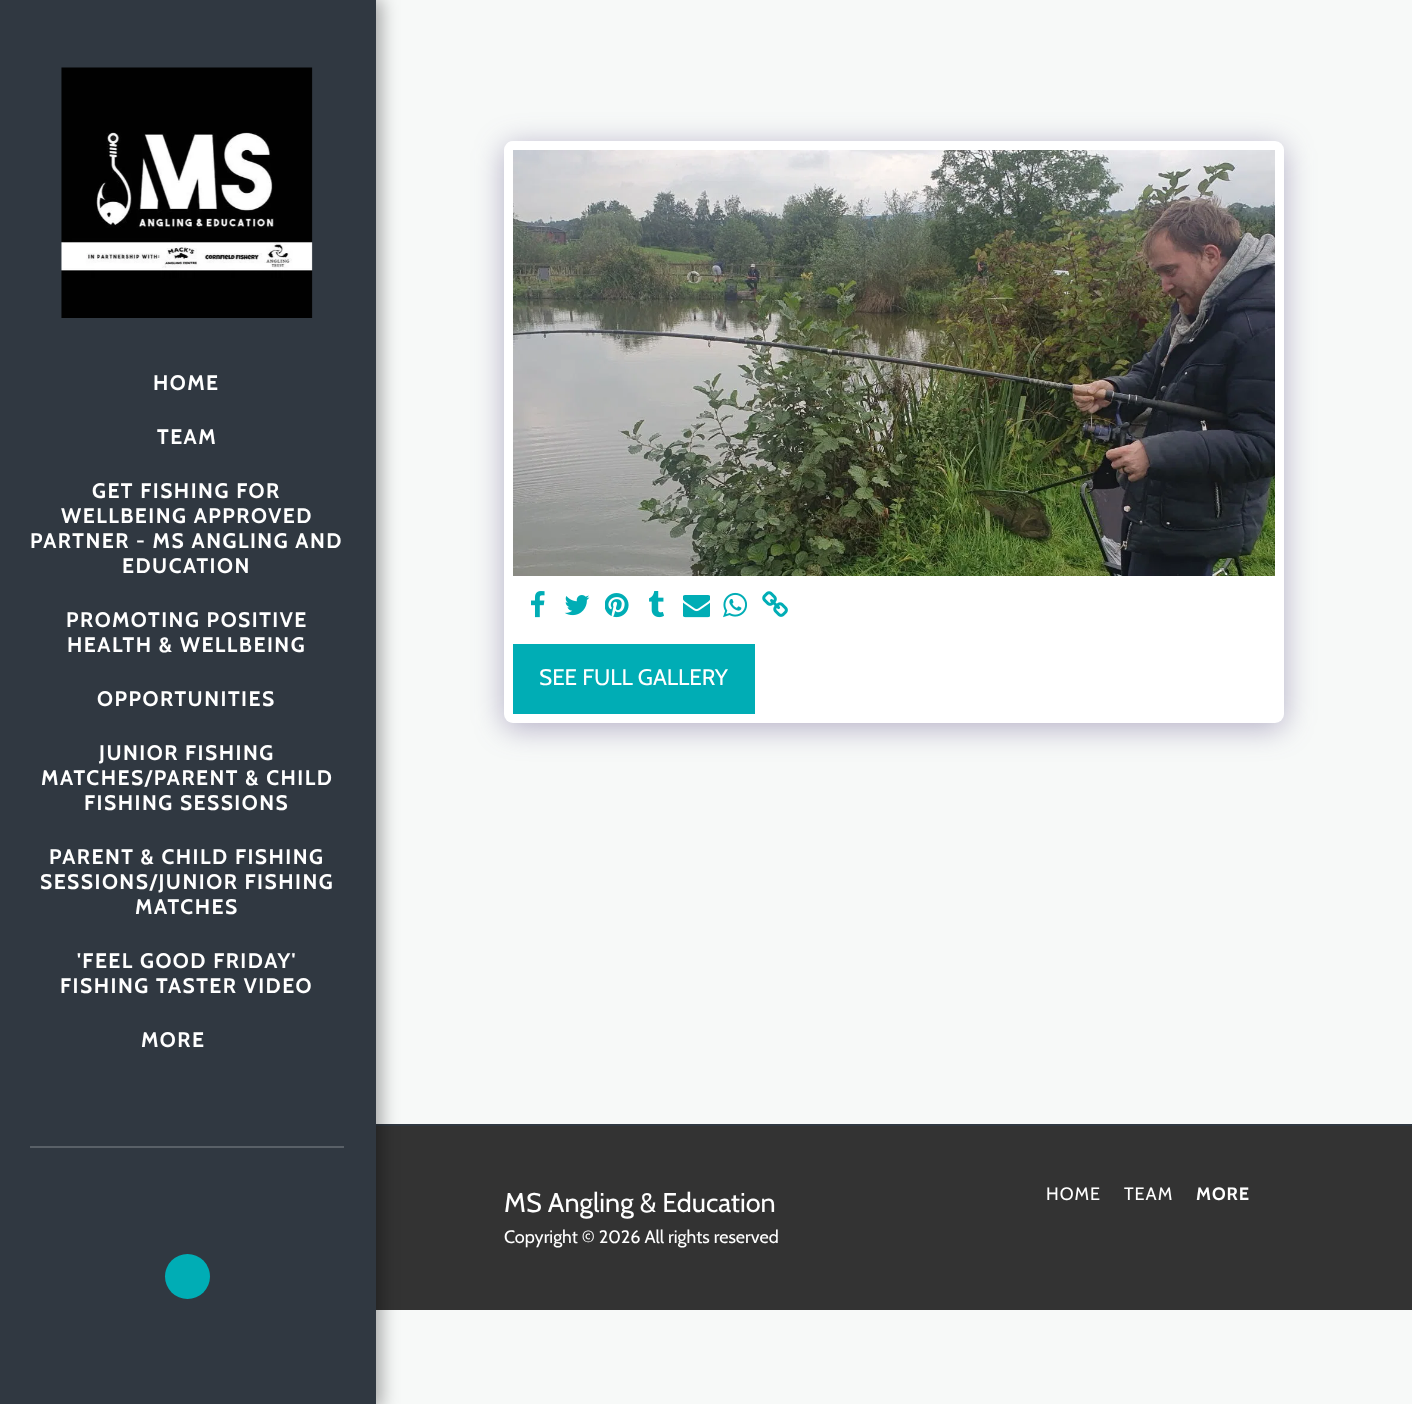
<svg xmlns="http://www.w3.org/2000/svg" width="1412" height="1404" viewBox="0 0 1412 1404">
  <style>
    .t1 { font: bold 21px Cabin; letter-spacing: 1.5px; fill: #fff; }
    .t2 { font: 22.5px Cabin; fill: #fff; }
    .t3 { font: 27px Cabin; fill: #fff; }
    .t4 { font: 18px Cabin; fill: #fff; }
    .t5 { font: 18px Cabin; letter-spacing: 1px; fill: #fff; }
    .t6 { font: bold 18px Cabin; letter-spacing: 1px; fill: #fff; }
  </style>
  <rect width="100%" height="100%" fill="#f7f9f8"/>
  <rect x="376" y="1126" width="1036" height="184" fill="#333"/>
  <rect x="375" y="1124" width="1037" height="2" fill="#303841"/>
  <rect x="0" y="-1" width="381" height="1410" fill="#00000059" filter="blur(9px)"/>
  <rect x="0" y="0" width="376" height="1404" fill="#303841"/>
  <image x="61" y="67" width="252" height="251" href="images/1.png"/>
  <text x="153" y="390" class="t1">HOME</text>
  <text x="157" y="444" class="t1">TEAM</text>
  <text x="92" y="498" class="t1">GET FISHING FOR</text>
  <text x="61" y="523" class="t1">WELLBEING APPROVED</text>
  <text x="30" y="548" class="t1">PARTNER - MS ANGLING AND</text>
  <text x="122" y="573" class="t1">EDUCATION</text>
  <text x="66" y="627" class="t1">PROMOTING POSITIVE</text>
  <text x="67" y="652" class="t1">HEALTH &amp; WELLBEING</text>
  <text x="97" y="706" class="t1">OPPORTUNITIES</text>
  <text x="99" y="760" class="t1">JUNIOR FISHING</text>
  <text x="41" y="785" class="t1">MATCHES/PARENT &amp; CHILD</text>
  <text x="84" y="810" class="t1">FISHING SESSIONS</text>
  <text x="49" y="864" class="t1">PARENT &amp; CHILD FISHING</text>
  <text x="40" y="889" class="t1">SESSIONS/JUNIOR FISHING</text>
  <text x="135" y="914" class="t1">MATCHES</text>
  <text x="77" y="968" class="t1">'FEEL GOOD FRIDAY'</text>
  <text x="60" y="993" class="t1">FISHING TASTER VIDEO</text>
  <text x="141" y="1047" class="t1">MORE</text>
  <rect x="30" y="1146" width="314" height="2" fill="#596067"/>
  <circle cx="187.5" cy="1276.5" r="22.5" fill="#00adb5"/>
  <rect x="504" y="146" width="780" height="582" rx="9" fill="#4d3f7a66" filter="blur(15px)"/>
  <rect x="504" y="141" width="780" height="582" rx="9" fill="#fff"/>
  <image x="513" y="150" width="762" height="426" href="images/2.png"/>
  <image x="531" y="591" width="14" height="27" href="images/3.png"/>
  <image x="564" y="595" width="26" height="21" href="images/4.png"/>
  <image x="605" y="593" width="24" height="25" href="images/5.png"/>
  <image x="649" y="591" width="15" height="27" href="images/6.png"/>
  <image x="683" y="595" width="27" height="23" href="images/7.png"/>
  <image x="723" y="592" width="24" height="26" href="images/8.png"/>
  <image x="762" y="591" width="26" height="26" href="images/9.png"/>
  <rect x="513" y="644" width="242" height="70" fill="#00adb5"/>
  <text x="539" y="685" class="t2">SEE FULL GALLERY</text>
  <text x="504" y="1212" class="t3">MS Angling &amp; Education</text>
  <text x="504" y="1243" class="t4">Copyright © 2026 All rights reserved</text>
  <text x="1046" y="1200" class="t5">HOME</text>
  <text x="1124" y="1200" class="t5">TEAM</text>
  <text x="1196" y="1200" class="t6">MORE</text>
</svg>
